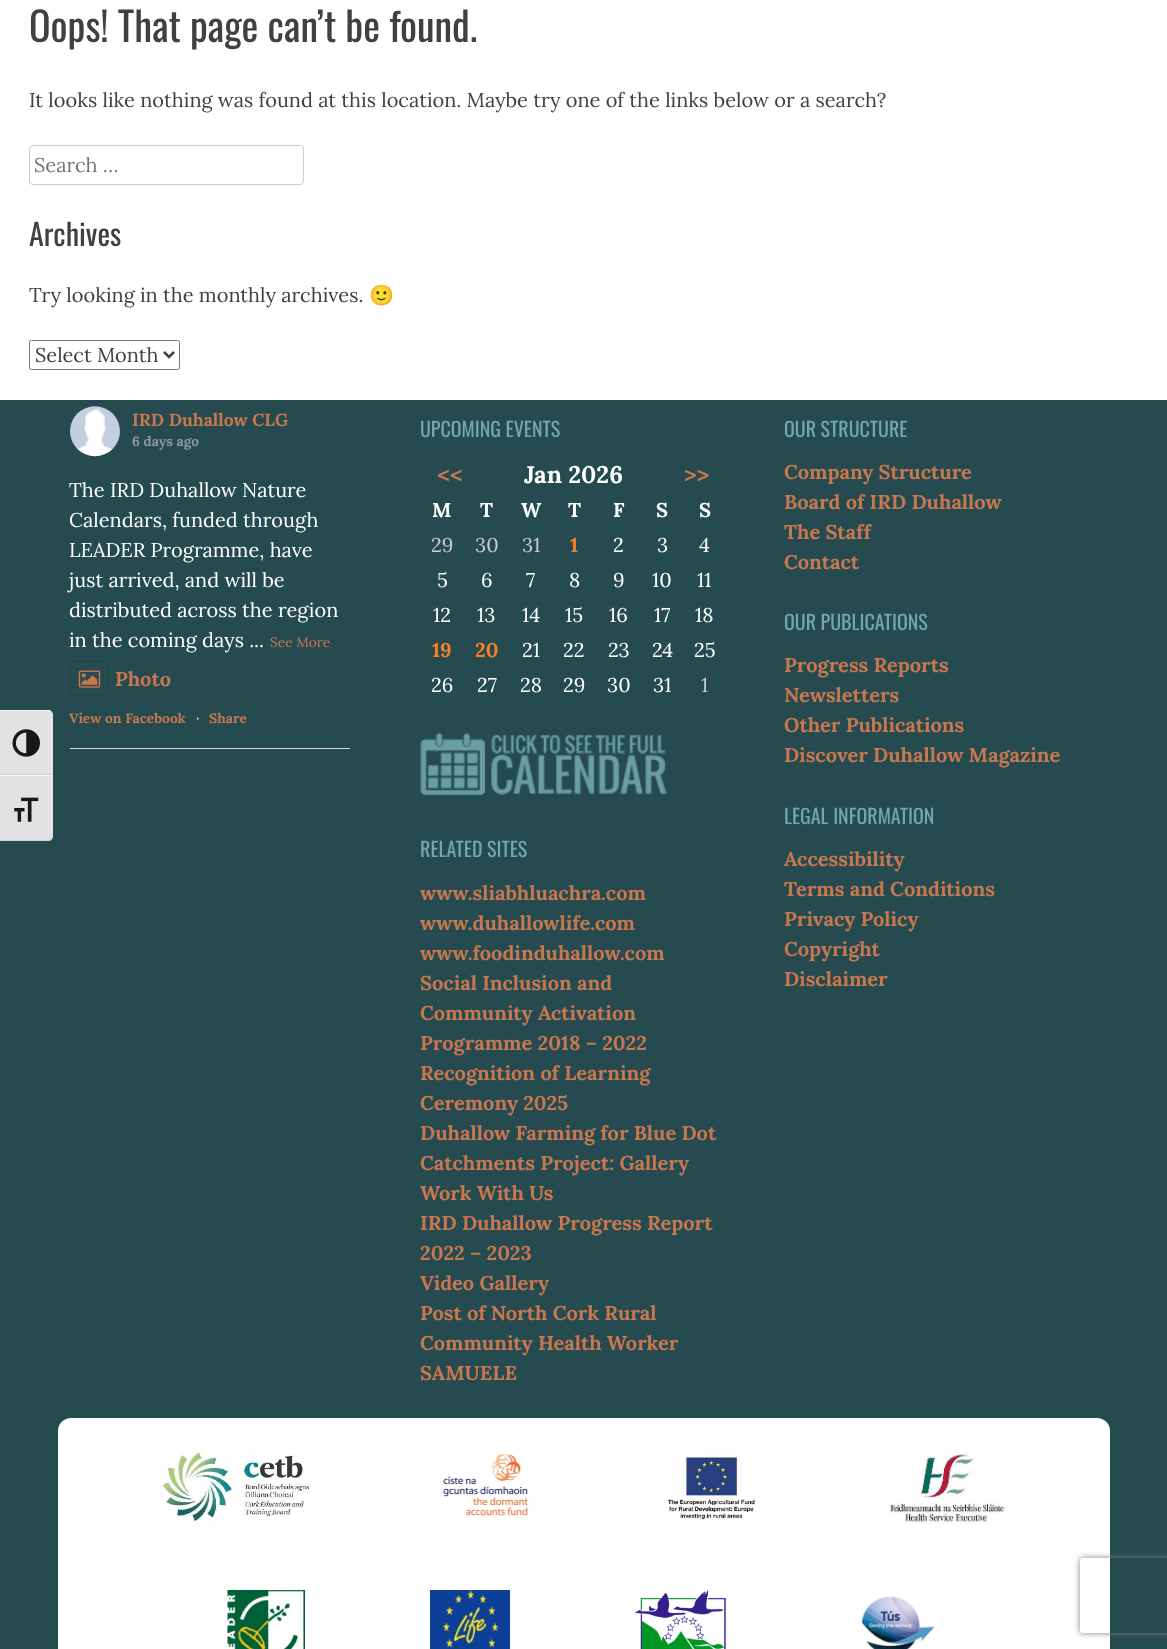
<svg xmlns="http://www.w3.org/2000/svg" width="1167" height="1649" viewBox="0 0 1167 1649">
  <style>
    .t1 { font: 40px Oswald; fill: #404040; }
    .t2 { font: 20px Lora; fill: #404040; }
    .t3 { font: 20px Lora; fill: #757575; }
    .t4 { font: 30px Oswald; fill: #404040; }
    .t5 { font: 20px Noto Color Emoji; fill: #404040; }
    .t6 { font: bold 17.5px Lora; fill: #c9774f; }
    .t7 { font: bold 13.75px Lora; fill: #9197a3; }
    .t8 { font: 20px Lora; fill: #fff; }
    .t9 { font: 13.75px Lora; fill: #c9774f; }
    .t10 { font: bold 20px Lora; fill: #c9774f; }
    .t11 { font: bold 13.75px Lora; fill: #c9774f; }
    .t12 { font: 13.75px Lora; fill: #fff; }
    .t13 { font: 20px Oswald; fill: #71a8af; }
    .t14 { font: bold 24px Lora; fill: #c9774f; }
    .t15 { font: bold 24px Lora; fill: #fff; }
    .t16 { font: bold 20px Lora; fill: #fff; }
    .t17 { font: 20px Lora; fill: #ccc; }
    .t18 { font: bold 20px Lora; fill: #fd7e29; }
  </style>
  <defs>
    <clipPath id="clip1"><path d="M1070 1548H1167V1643H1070ZM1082.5 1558H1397.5C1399 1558 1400 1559 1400 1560.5V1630.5C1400 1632 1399 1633 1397.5 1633H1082.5C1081 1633 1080 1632 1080 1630.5V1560.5C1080 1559 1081 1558 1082.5 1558Z" clip-rule="evenodd"/></clipPath>
  </defs>
  <rect width="100%" height="100%" fill="#fff"/>
  <text x="29" y="42" class="t1">Oops! That page can’t be found.</text>
  <text x="29" y="107" class="t2">It looks like nothing was found at this location. Maybe try one of the links below or a search?</text>
  <rect x="29.5" y="145.5" width="274" height="39" rx="3.5" fill="none" stroke="#ccc"/>
  <text x="34" y="172" class="t3">Search …</text>
  <text x="29" y="246" class="t4">Archives</text>
  <text x="29" y="302" class="t2">Try looking in the monthly archives.</text>
  <text x="369" y="302" class="t5">🙂</text>
  <rect x="29.5" y="340.5" width="150" height="29" rx="2" fill="none" stroke="#767676"/>
  <path d="M164 352L169 357L174 352" fill="none" stroke="#404040" stroke-width="2.5"/>
  <text x="35" y="362" class="t2">Select Month</text>
  <rect x="0" y="400" width="1167" height="1249" fill="#254b50"/>
  <path d="M0 710H48C51 710 53 712 53 715V775H0Z" fill="#e2e2e2"/>
  <path d="M0 710V711H48C50 711 52 713 52 715C52 712 50 710 48 710Z" fill="#f5f5f5"/>
  <rect x="0" y="774" width="52" height="1" fill="#d2d2d2"/>
  <image x="12" y="729" width="28" height="28" href="images/1.png"/>
  <path d="M0 775H53V836C53 839 51 841 48 841H0Z" fill="#e2e2e2"/>
  <rect x="0" y="775" width="52" height="1" fill="#f5f5f5"/>
  <path d="M48 841C50 841 52 839 52 836C52 838 50 840 48 840H0V841Z" fill="#d2d2d2"/>
  <image x="14" y="797" width="25" height="25" href="images/2.png"/>
  <rect x="70" y="748" width="280" height="1" fill="#ddd"/>
  <image x="69" y="406" width="51" height="51" href="images/3.png"/>
  <text x="132" y="426" class="t6">IRD Duhallow CLG</text>
  <text x="132" y="446" class="t7">6 days ago</text>
  <text x="69" y="497" class="t8">The IRD Duhallow Nature</text>
  <text x="69" y="527" class="t8">Calendars, funded through</text>
  <text x="69" y="557" class="t8">LEADER Programme, have</text>
  <text x="69" y="587" class="t8">just arrived, and will be</text>
  <text x="69" y="617" class="t8">distributed across the region</text>
  <text x="69" y="647" class="t8">in the coming days ...</text>
  <text x="270" y="647" class="t9">See More</text>
  <rect x="70.5" y="661.5" width="37" height="34" rx="3.5" fill="none" stroke="#204346"/>
  <image x="78" y="670" width="23" height="18" href="images/4.png"/>
  <text x="115" y="686" class="t10">Photo</text>
  <text x="69" y="723" class="t11">View on Facebook</text>
  <text x="196" y="723" class="t12">·</text>
  <text x="209" y="723" class="t11">Share</text>
  <text x="420" y="437" class="t13">UPCOMING EVENTS</text>
  <text x="437" y="483" class="t14">&lt;&lt;</text>
  <text x="524" y="483" class="t15">Jan 2026</text>
  <text x="684" y="483" class="t14">&gt;&gt;</text>
  <text x="432" y="517" class="t16">M</text>
  <text x="480" y="517" class="t16">T</text>
  <text x="521" y="517" class="t16">W</text>
  <text x="568" y="517" class="t16">T</text>
  <text x="613" y="517" class="t16">F</text>
  <text x="656" y="517" class="t16">S</text>
  <text x="699" y="517" class="t16">S</text>
  <text x="431" y="552" class="t17">29</text>
  <text x="475" y="552" class="t17">30</text>
  <text x="522" y="552" class="t17">31</text>
  <text x="570" y="552" class="t18">1</text>
  <text x="613" y="552" class="t8">2</text>
  <text x="657" y="552" class="t8">3</text>
  <text x="699" y="552" class="t8">4</text>
  <text x="437" y="587" class="t8">5</text>
  <text x="481" y="587" class="t8">6</text>
  <text x="526" y="587" class="t8">7</text>
  <text x="569" y="587" class="t8">8</text>
  <text x="613" y="587" class="t8">9</text>
  <text x="652" y="587" class="t8">10</text>
  <text x="697" y="587" class="t8">11</text>
  <text x="433" y="622" class="t8">12</text>
  <text x="477" y="622" class="t8">13</text>
  <text x="522" y="622" class="t8">14</text>
  <text x="565" y="622" class="t8">15</text>
  <text x="609" y="622" class="t8">16</text>
  <text x="654" y="622" class="t8">17</text>
  <text x="695" y="622" class="t8">18</text>
  <text x="432" y="657" class="t18">19</text>
  <text x="475" y="657" class="t18">20</text>
  <text x="522" y="657" class="t8">21</text>
  <text x="563" y="657" class="t8">22</text>
  <text x="608" y="657" class="t8">23</text>
  <text x="652" y="657" class="t8">24</text>
  <text x="694" y="657" class="t8">25</text>
  <text x="431" y="692" class="t8">26</text>
  <text x="477" y="692" class="t8">27</text>
  <text x="520" y="692" class="t8">28</text>
  <text x="563" y="692" class="t8">29</text>
  <text x="607" y="692" class="t8">30</text>
  <text x="653" y="692" class="t8">31</text>
  <text x="701" y="692" class="t17">1</text>
  <image x="420" y="732" width="247" height="64" href="images/5.png"/>
  <text x="420" y="857" class="t13">RELATED SITES</text>
  <text x="420" y="900" class="t10">www.sliabhluachra.com</text>
  <text x="420" y="930" class="t10">www.duhallowlife.com</text>
  <text x="420" y="960" class="t10">www.foodinduhallow.com</text>
  <text x="420" y="990" class="t10">Social Inclusion and</text>
  <text x="420" y="1020" class="t10">Community Activation</text>
  <text x="420" y="1050" class="t10">Programme 2018 – 2022</text>
  <text x="420" y="1080" class="t10">Recognition of Learning</text>
  <text x="420" y="1110" class="t10">Ceremony 2025</text>
  <text x="420" y="1140" class="t10">Duhallow Farming for Blue Dot</text>
  <text x="420" y="1170" class="t10">Catchments Project: Gallery</text>
  <text x="420" y="1200" class="t10">Work With Us</text>
  <text x="420" y="1230" class="t10">IRD Duhallow Progress Report</text>
  <text x="420" y="1260" class="t10">2022 – 2023</text>
  <text x="420" y="1290" class="t10">Video Gallery</text>
  <text x="420" y="1320" class="t10">Post of North Cork Rural</text>
  <text x="420" y="1350" class="t10">Community Health Worker</text>
  <text x="420" y="1380" class="t10">SAMUELE</text>
  <text x="784" y="437" class="t13">OUR STRUCTURE</text>
  <text x="784" y="479" class="t10">Company Structure</text>
  <text x="784" y="509" class="t10">Board of IRD Duhallow</text>
  <text x="784" y="539" class="t10">The Staff</text>
  <text x="784" y="569" class="t10">Contact</text>
  <text x="784" y="630" class="t13">OUR PUBLICATIONS</text>
  <text x="784" y="672" class="t10">Progress Reports</text>
  <text x="784" y="702" class="t10">Newsletters</text>
  <text x="784" y="732" class="t10">Other Publications</text>
  <text x="784" y="762" class="t10">Discover Duhallow Magazine</text>
  <text x="784" y="824" class="t13">LEGAL INFORMATION</text>
  <text x="784" y="866" class="t10">Accessibility</text>
  <text x="784" y="896" class="t10">Terms and Conditions</text>
  <text x="784" y="926" class="t10">Privacy Policy</text>
  <text x="784" y="956" class="t10">Copyright</text>
  <text x="784" y="986" class="t10">Disclaimer</text>
  <rect x="58" y="1418" width="1052" height="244" rx="13" fill="#fff"/>
  <image x="161" y="1451" width="149" height="71" href="images/6.png"/>
  <image x="443" y="1454" width="86" height="62" href="images/7.png"/>
  <image x="667" y="1455" width="88" height="65" href="images/8.png"/>
  <image x="887" y="1450" width="119" height="74" href="images/9.png"/>
  <image x="227" y="1590" width="78" height="59" href="images/10.png"/>
  <image x="430" y="1590" width="80" height="59" href="images/11.png"/>
  <image x="635" y="1590" width="92" height="59" href="images/12.png"/>
  <image x="861" y="1596" width="74" height="53" href="images/13.png"/>
  <g clip-path="url(#clip1)">
    <rect x="1080" y="1558" width="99" height="75" rx="2.5" fill="#808080" filter="blur(3px)"/>
  </g>
</svg>
